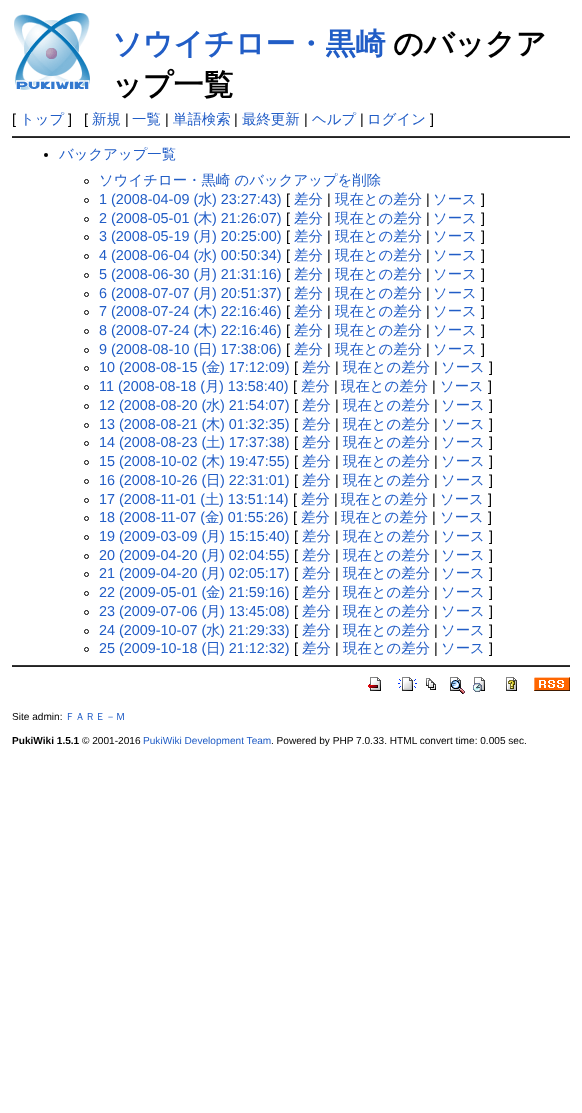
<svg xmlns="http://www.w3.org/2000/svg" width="582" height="1113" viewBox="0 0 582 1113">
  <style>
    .t1 { font: bold 30px WenQuanYi Zen Hei; fill: #215dc6; }
    .t2 { font: bold 30px WenQuanYi Zen Hei; fill: #000; }
    .t3 { font: 14.4px Liberation Sans; fill: #000; }
    .t4 { font: 500 14.4px WenQuanYi Zen Hei; fill: #215dc6; }
    .t5 { font: 14.4px Liberation Sans; fill: #215dc6; }
    .t6 { font: 10.1px Liberation Sans; fill: #000; }
    .t7 { font: 500 10.1px WenQuanYi Zen Hei; fill: #215dc6; }
    .t8 { font: bold 10.1px Liberation Sans; fill: #000; }
    .t9 { font: 10.1px Liberation Sans; fill: #215dc6; }
  </style>
  <rect width="100%" height="100%" fill="#fff"/>
  <image x="14" y="13" width="76" height="77" href="images/1.png"/>
  <text x="112" y="54" class="t1">ソウイチロー・黒崎</text>
  <text x="393" y="54" class="t2">のバックア</text>
  <text x="112" y="95" class="t2">ップ一覧</text>
  <text x="12" y="124" class="t3">[</text>
  <text x="20" y="124" class="t4">トップ</text>
  <text x="68" y="124" class="t3">]</text>
  <text x="84" y="124" class="t3">[</text>
  <text x="92" y="124" class="t4">新規</text>
  <text x="125" y="124" class="t3">|</text>
  <text x="132" y="124" class="t4">一覧</text>
  <text x="165" y="124" class="t3">|</text>
  <text x="173" y="124" class="t4">単語検索</text>
  <text x="234" y="124" class="t3">|</text>
  <text x="242" y="124" class="t4">最終更新</text>
  <text x="304" y="124" class="t3">|</text>
  <text x="312" y="124" class="t4">ヘルプ</text>
  <text x="360" y="124" class="t3">|</text>
  <text x="367" y="124" class="t4">ログイン</text>
  <text x="430" y="124" class="t3">]</text>
  <rect x="12" y="136" width="558" height="1" fill="#333"/>
  <rect x="12" y="137" width="558" height="1" fill="#222"/>
  <circle cx="46" cy="155" r="2" fill="#000"/>
  <text x="59" y="159" class="t4">バックアップ一覧</text>
  <circle cx="86.5" cy="181.5" r="2" fill="none" stroke="#000"/>
  <text x="99" y="185" class="t4">ソウイチロー・黒崎 のバックアップを削除</text>
  <circle cx="86.5" cy="200.5" r="2" fill="none" stroke="#000"/>
  <text x="99" y="204" class="t5">1 (2008-04-09 (</text>
  <text x="198" y="204" class="t4">水</text>
  <text x="212" y="204" class="t5">) 23:27:43)</text>
  <text x="286" y="204" class="t3">[</text>
  <text x="294" y="204" class="t4">差分</text>
  <text x="327" y="204" class="t3">|</text>
  <text x="335" y="204" class="t4">現在との差分</text>
  <text x="426" y="204" class="t3">|</text>
  <text x="433" y="204" class="t4">ソース</text>
  <text x="481" y="204" class="t3">]</text>
  <circle cx="86.5" cy="219.5" r="2" fill="none" stroke="#000"/>
  <text x="99" y="223" class="t5">2 (2008-05-01 (</text>
  <text x="198" y="223" class="t4">木</text>
  <text x="212" y="223" class="t5">) 21:26:07)</text>
  <text x="286" y="223" class="t3">[</text>
  <text x="294" y="223" class="t4">差分</text>
  <text x="327" y="223" class="t3">|</text>
  <text x="335" y="223" class="t4">現在との差分</text>
  <text x="426" y="223" class="t3">|</text>
  <text x="433" y="223" class="t4">ソース</text>
  <text x="481" y="223" class="t3">]</text>
  <circle cx="86.5" cy="237.5" r="2" fill="none" stroke="#000"/>
  <text x="99" y="241" class="t5">3 (2008-05-19 (</text>
  <text x="198" y="241" class="t4">月</text>
  <text x="212" y="241" class="t5">) 20:25:00)</text>
  <text x="286" y="241" class="t3">[</text>
  <text x="294" y="241" class="t4">差分</text>
  <text x="327" y="241" class="t3">|</text>
  <text x="335" y="241" class="t4">現在との差分</text>
  <text x="426" y="241" class="t3">|</text>
  <text x="433" y="241" class="t4">ソース</text>
  <text x="481" y="241" class="t3">]</text>
  <circle cx="86.5" cy="256.5" r="2" fill="none" stroke="#000"/>
  <text x="99" y="260" class="t5">4 (2008-06-04 (</text>
  <text x="198" y="260" class="t4">水</text>
  <text x="212" y="260" class="t5">) 00:50:34)</text>
  <text x="286" y="260" class="t3">[</text>
  <text x="294" y="260" class="t4">差分</text>
  <text x="327" y="260" class="t3">|</text>
  <text x="335" y="260" class="t4">現在との差分</text>
  <text x="426" y="260" class="t3">|</text>
  <text x="433" y="260" class="t4">ソース</text>
  <text x="481" y="260" class="t3">]</text>
  <circle cx="86.5" cy="275.5" r="2" fill="none" stroke="#000"/>
  <text x="99" y="279" class="t5">5 (2008-06-30 (</text>
  <text x="198" y="279" class="t4">月</text>
  <text x="212" y="279" class="t5">) 21:31:16)</text>
  <text x="286" y="279" class="t3">[</text>
  <text x="294" y="279" class="t4">差分</text>
  <text x="327" y="279" class="t3">|</text>
  <text x="335" y="279" class="t4">現在との差分</text>
  <text x="426" y="279" class="t3">|</text>
  <text x="433" y="279" class="t4">ソース</text>
  <text x="481" y="279" class="t3">]</text>
  <circle cx="86.5" cy="294.5" r="2" fill="none" stroke="#000"/>
  <text x="99" y="298" class="t5">6 (2008-07-07 (</text>
  <text x="198" y="298" class="t4">月</text>
  <text x="212" y="298" class="t5">) 20:51:37)</text>
  <text x="286" y="298" class="t3">[</text>
  <text x="294" y="298" class="t4">差分</text>
  <text x="327" y="298" class="t3">|</text>
  <text x="335" y="298" class="t4">現在との差分</text>
  <text x="426" y="298" class="t3">|</text>
  <text x="433" y="298" class="t4">ソース</text>
  <text x="481" y="298" class="t3">]</text>
  <circle cx="86.5" cy="312.5" r="2" fill="none" stroke="#000"/>
  <text x="99" y="316" class="t5">7 (2008-07-24 (</text>
  <text x="198" y="316" class="t4">木</text>
  <text x="212" y="316" class="t5">) 22:16:46)</text>
  <text x="286" y="316" class="t3">[</text>
  <text x="294" y="316" class="t4">差分</text>
  <text x="327" y="316" class="t3">|</text>
  <text x="335" y="316" class="t4">現在との差分</text>
  <text x="426" y="316" class="t3">|</text>
  <text x="433" y="316" class="t4">ソース</text>
  <text x="481" y="316" class="t3">]</text>
  <circle cx="86.5" cy="331.5" r="2" fill="none" stroke="#000"/>
  <text x="99" y="335" class="t5">8 (2008-07-24 (</text>
  <text x="198" y="335" class="t4">木</text>
  <text x="212" y="335" class="t5">) 22:16:46)</text>
  <text x="286" y="335" class="t3">[</text>
  <text x="294" y="335" class="t4">差分</text>
  <text x="327" y="335" class="t3">|</text>
  <text x="335" y="335" class="t4">現在との差分</text>
  <text x="426" y="335" class="t3">|</text>
  <text x="433" y="335" class="t4">ソース</text>
  <text x="481" y="335" class="t3">]</text>
  <circle cx="86.5" cy="350.5" r="2" fill="none" stroke="#000"/>
  <text x="99" y="354" class="t5">9 (2008-08-10 (</text>
  <text x="198" y="354" class="t4">日</text>
  <text x="212" y="354" class="t5">) 17:38:06)</text>
  <text x="286" y="354" class="t3">[</text>
  <text x="294" y="354" class="t4">差分</text>
  <text x="327" y="354" class="t3">|</text>
  <text x="335" y="354" class="t4">現在との差分</text>
  <text x="426" y="354" class="t3">|</text>
  <text x="433" y="354" class="t4">ソース</text>
  <text x="481" y="354" class="t3">]</text>
  <circle cx="86.5" cy="368.5" r="2" fill="none" stroke="#000"/>
  <text x="99" y="372" class="t5">10 (2008-08-15 (</text>
  <text x="206" y="372" class="t4">金</text>
  <text x="220" y="372" class="t5">) 17:12:09)</text>
  <text x="294" y="372" class="t3">[</text>
  <text x="302" y="372" class="t4">差分</text>
  <text x="335" y="372" class="t3">|</text>
  <text x="343" y="372" class="t4">現在との差分</text>
  <text x="434" y="372" class="t3">|</text>
  <text x="441" y="372" class="t4">ソース</text>
  <text x="489" y="372" class="t3">]</text>
  <circle cx="86.5" cy="387.5" r="2" fill="none" stroke="#000"/>
  <text x="99" y="391" class="t5">11 (2008-08-18 (</text>
  <text x="205" y="391" class="t4">月</text>
  <text x="219" y="391" class="t5">) 13:58:40)</text>
  <text x="293" y="391" class="t3">[</text>
  <text x="301" y="391" class="t4">差分</text>
  <text x="334" y="391" class="t3">|</text>
  <text x="341" y="391" class="t4">現在との差分</text>
  <text x="432" y="391" class="t3">|</text>
  <text x="440" y="391" class="t4">ソース</text>
  <text x="488" y="391" class="t3">]</text>
  <circle cx="86.5" cy="406.5" r="2" fill="none" stroke="#000"/>
  <text x="99" y="410" class="t5">12 (2008-08-20 (</text>
  <text x="206" y="410" class="t4">水</text>
  <text x="220" y="410" class="t5">) 21:54:07)</text>
  <text x="294" y="410" class="t3">[</text>
  <text x="302" y="410" class="t4">差分</text>
  <text x="335" y="410" class="t3">|</text>
  <text x="343" y="410" class="t4">現在との差分</text>
  <text x="434" y="410" class="t3">|</text>
  <text x="441" y="410" class="t4">ソース</text>
  <text x="489" y="410" class="t3">]</text>
  <circle cx="86.5" cy="425.5" r="2" fill="none" stroke="#000"/>
  <text x="99" y="429" class="t5">13 (2008-08-21 (</text>
  <text x="206" y="429" class="t4">木</text>
  <text x="220" y="429" class="t5">) 01:32:35)</text>
  <text x="294" y="429" class="t3">[</text>
  <text x="302" y="429" class="t4">差分</text>
  <text x="335" y="429" class="t3">|</text>
  <text x="343" y="429" class="t4">現在との差分</text>
  <text x="434" y="429" class="t3">|</text>
  <text x="441" y="429" class="t4">ソース</text>
  <text x="489" y="429" class="t3">]</text>
  <circle cx="86.5" cy="443.5" r="2" fill="none" stroke="#000"/>
  <text x="99" y="447" class="t5">14 (2008-08-23 (</text>
  <text x="206" y="447" class="t4">土</text>
  <text x="220" y="447" class="t5">) 17:37:38)</text>
  <text x="294" y="447" class="t3">[</text>
  <text x="302" y="447" class="t4">差分</text>
  <text x="335" y="447" class="t3">|</text>
  <text x="343" y="447" class="t4">現在との差分</text>
  <text x="434" y="447" class="t3">|</text>
  <text x="441" y="447" class="t4">ソース</text>
  <text x="489" y="447" class="t3">]</text>
  <circle cx="86.5" cy="462.5" r="2" fill="none" stroke="#000"/>
  <text x="99" y="466" class="t5">15 (2008-10-02 (</text>
  <text x="206" y="466" class="t4">木</text>
  <text x="220" y="466" class="t5">) 19:47:55)</text>
  <text x="294" y="466" class="t3">[</text>
  <text x="302" y="466" class="t4">差分</text>
  <text x="335" y="466" class="t3">|</text>
  <text x="343" y="466" class="t4">現在との差分</text>
  <text x="434" y="466" class="t3">|</text>
  <text x="441" y="466" class="t4">ソース</text>
  <text x="489" y="466" class="t3">]</text>
  <circle cx="86.5" cy="481.5" r="2" fill="none" stroke="#000"/>
  <text x="99" y="485" class="t5">16 (2008-10-26 (</text>
  <text x="206" y="485" class="t4">日</text>
  <text x="220" y="485" class="t5">) 22:31:01)</text>
  <text x="294" y="485" class="t3">[</text>
  <text x="302" y="485" class="t4">差分</text>
  <text x="335" y="485" class="t3">|</text>
  <text x="343" y="485" class="t4">現在との差分</text>
  <text x="434" y="485" class="t3">|</text>
  <text x="441" y="485" class="t4">ソース</text>
  <text x="489" y="485" class="t3">]</text>
  <circle cx="86.5" cy="500.5" r="2" fill="none" stroke="#000"/>
  <text x="99" y="504" class="t5">17 (2008-11-01 (</text>
  <text x="205" y="504" class="t4">土</text>
  <text x="219" y="504" class="t5">) 13:51:14)</text>
  <text x="293" y="504" class="t3">[</text>
  <text x="301" y="504" class="t4">差分</text>
  <text x="334" y="504" class="t3">|</text>
  <text x="341" y="504" class="t4">現在との差分</text>
  <text x="432" y="504" class="t3">|</text>
  <text x="440" y="504" class="t4">ソース</text>
  <text x="488" y="504" class="t3">]</text>
  <circle cx="86.5" cy="518.5" r="2" fill="none" stroke="#000"/>
  <text x="99" y="522" class="t5">18 (2008-11-07 (</text>
  <text x="205" y="522" class="t4">金</text>
  <text x="219" y="522" class="t5">) 01:55:26)</text>
  <text x="293" y="522" class="t3">[</text>
  <text x="301" y="522" class="t4">差分</text>
  <text x="334" y="522" class="t3">|</text>
  <text x="341" y="522" class="t4">現在との差分</text>
  <text x="432" y="522" class="t3">|</text>
  <text x="440" y="522" class="t4">ソース</text>
  <text x="488" y="522" class="t3">]</text>
  <circle cx="86.5" cy="537.5" r="2" fill="none" stroke="#000"/>
  <text x="99" y="541" class="t5">19 (2009-03-09 (</text>
  <text x="206" y="541" class="t4">月</text>
  <text x="220" y="541" class="t5">) 15:15:40)</text>
  <text x="294" y="541" class="t3">[</text>
  <text x="302" y="541" class="t4">差分</text>
  <text x="335" y="541" class="t3">|</text>
  <text x="343" y="541" class="t4">現在との差分</text>
  <text x="434" y="541" class="t3">|</text>
  <text x="441" y="541" class="t4">ソース</text>
  <text x="489" y="541" class="t3">]</text>
  <circle cx="86.5" cy="556.5" r="2" fill="none" stroke="#000"/>
  <text x="99" y="560" class="t5">20 (2009-04-20 (</text>
  <text x="206" y="560" class="t4">月</text>
  <text x="220" y="560" class="t5">) 02:04:55)</text>
  <text x="294" y="560" class="t3">[</text>
  <text x="302" y="560" class="t4">差分</text>
  <text x="335" y="560" class="t3">|</text>
  <text x="343" y="560" class="t4">現在との差分</text>
  <text x="434" y="560" class="t3">|</text>
  <text x="441" y="560" class="t4">ソース</text>
  <text x="489" y="560" class="t3">]</text>
  <circle cx="86.5" cy="574.5" r="2" fill="none" stroke="#000"/>
  <text x="99" y="578" class="t5">21 (2009-04-20 (</text>
  <text x="206" y="578" class="t4">月</text>
  <text x="220" y="578" class="t5">) 02:05:17)</text>
  <text x="294" y="578" class="t3">[</text>
  <text x="302" y="578" class="t4">差分</text>
  <text x="335" y="578" class="t3">|</text>
  <text x="343" y="578" class="t4">現在との差分</text>
  <text x="434" y="578" class="t3">|</text>
  <text x="441" y="578" class="t4">ソース</text>
  <text x="489" y="578" class="t3">]</text>
  <circle cx="86.5" cy="593.5" r="2" fill="none" stroke="#000"/>
  <text x="99" y="597" class="t5">22 (2009-05-01 (</text>
  <text x="206" y="597" class="t4">金</text>
  <text x="220" y="597" class="t5">) 21:59:16)</text>
  <text x="294" y="597" class="t3">[</text>
  <text x="302" y="597" class="t4">差分</text>
  <text x="335" y="597" class="t3">|</text>
  <text x="343" y="597" class="t4">現在との差分</text>
  <text x="434" y="597" class="t3">|</text>
  <text x="441" y="597" class="t4">ソース</text>
  <text x="489" y="597" class="t3">]</text>
  <circle cx="86.5" cy="612.5" r="2" fill="none" stroke="#000"/>
  <text x="99" y="616" class="t5">23 (2009-07-06 (</text>
  <text x="206" y="616" class="t4">月</text>
  <text x="220" y="616" class="t5">) 13:45:08)</text>
  <text x="294" y="616" class="t3">[</text>
  <text x="302" y="616" class="t4">差分</text>
  <text x="335" y="616" class="t3">|</text>
  <text x="343" y="616" class="t4">現在との差分</text>
  <text x="434" y="616" class="t3">|</text>
  <text x="441" y="616" class="t4">ソース</text>
  <text x="489" y="616" class="t3">]</text>
  <circle cx="86.5" cy="631.5" r="2" fill="none" stroke="#000"/>
  <text x="99" y="635" class="t5">24 (2009-10-07 (</text>
  <text x="206" y="635" class="t4">水</text>
  <text x="220" y="635" class="t5">) 21:29:33)</text>
  <text x="294" y="635" class="t3">[</text>
  <text x="302" y="635" class="t4">差分</text>
  <text x="335" y="635" class="t3">|</text>
  <text x="343" y="635" class="t4">現在との差分</text>
  <text x="434" y="635" class="t3">|</text>
  <text x="441" y="635" class="t4">ソース</text>
  <text x="489" y="635" class="t3">]</text>
  <circle cx="86.5" cy="649.5" r="2" fill="none" stroke="#000"/>
  <text x="99" y="653" class="t5">25 (2009-10-18 (</text>
  <text x="206" y="653" class="t4">日</text>
  <text x="220" y="653" class="t5">) 21:12:32)</text>
  <text x="294" y="653" class="t3">[</text>
  <text x="302" y="653" class="t4">差分</text>
  <text x="335" y="653" class="t3">|</text>
  <text x="343" y="653" class="t4">現在との差分</text>
  <text x="434" y="653" class="t3">|</text>
  <text x="441" y="653" class="t4">ソース</text>
  <text x="489" y="653" class="t3">]</text>
  <rect x="12" y="665" width="558" height="1" fill="#333"/>
  <rect x="12" y="666" width="558" height="1" fill="#222"/>
  <image x="368" y="677" width="13" height="14" href="images/2.png"/>
  <image x="398" y="677" width="19" height="14" href="images/3.png"/>
  <image x="426" y="678" width="10" height="12" href="images/4.png"/>
  <image x="450" y="677" width="15" height="17" href="images/5.png"/>
  <image x="473" y="677" width="12" height="15" href="images/6.png"/>
  <image x="506" y="677" width="11" height="14" href="images/7.png"/>
  <image x="534" y="677" width="36" height="14" href="images/8.png"/>
  <text x="12" y="720" class="t6">Site admin:</text>
  <text x="65" y="720" class="t7">ＦＡＲＥ－Ｍ</text>
  <text x="12" y="744" class="t8">PukiWiki 1.5.1</text>
  <text x="82" y="744" class="t6">© 2001-2016</text>
  <text x="143" y="744" class="t9">PukiWiki Development Team</text>
  <text x="271" y="744" class="t6">. Powered by PHP 7.0.33. HTML convert time: 0.005 sec.</text>
</svg>
